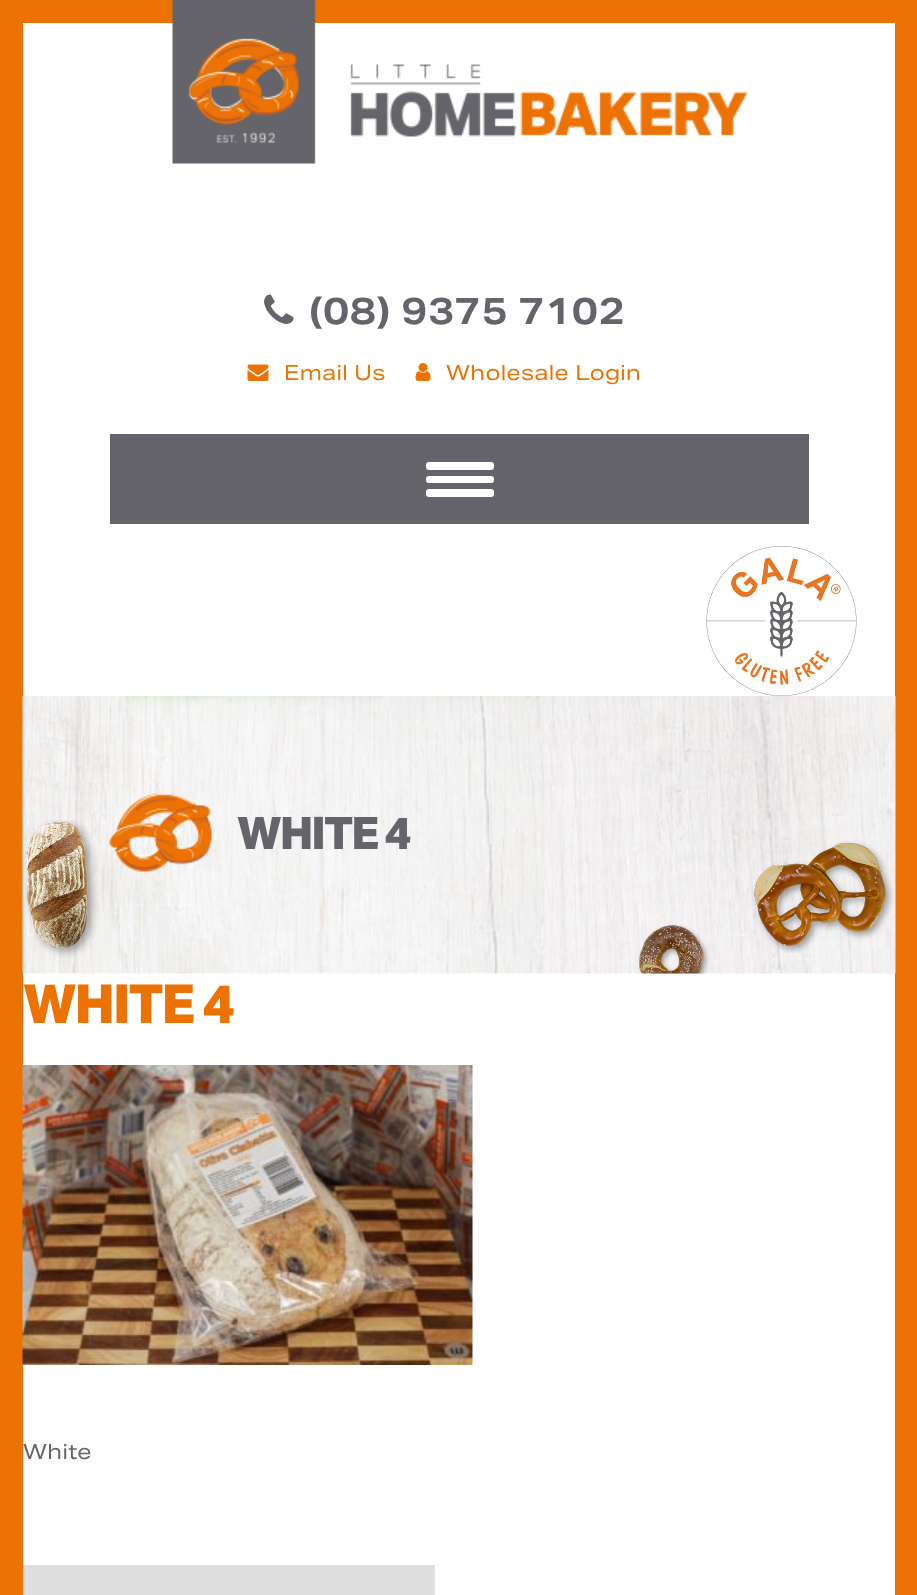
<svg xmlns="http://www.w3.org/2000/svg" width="917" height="1595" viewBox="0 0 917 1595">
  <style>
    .t1 { font: bold 37.5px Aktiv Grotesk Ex; letter-spacing: 0.4px; fill: #65646a; }
    .t2 { font: 21px Aktiv Grotesk Ex; letter-spacing: 0.4px; fill: #eb7203; }
    .t3 { font: 800 45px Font; letter-spacing: -2px; fill: #65646a; }
    .t4 { font: 800 54px Font; letter-spacing: -2px; fill: #eb7203; }
    .t5 { font: 21px Aktiv Grotesk Ex; letter-spacing: 0.4px; fill: #65646a; }
  </style>
  <rect width="100%" height="100%" fill="#fff"/>
  <rect x="11.5" y="11.5" width="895" height="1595" fill="none" stroke="#eb7203" stroke-width="23"/>
  <image x="172" y="0" width="575" height="164" href="images/1.png"/>
  <image x="264" y="294" width="30" height="30" href="images/2.png"/>
  <text x="309" y="324" class="t1">(08) 9375 7102</text>
  <image x="247" y="364" width="22" height="17" href="images/3.png"/>
  <text x="284" y="380" class="t2">Email Us</text>
  <image x="415" y="363" width="16" height="18" href="images/4.png"/>
  <text x="446" y="380" class="t2">Wholesale Login</text>
  <rect x="110" y="434" width="699" height="90" fill="#65646a"/>
  <rect x="426" y="476" width="68" height="7" rx="3" fill="#fff"/>
  <rect x="426" y="462" width="68" height="8" rx="3" fill="#fff"/>
  <rect x="426" y="489" width="68" height="8" rx="3" fill="#fff"/>
  <image x="706" y="546" width="151" height="150" href="images/5.png"/>
  <image x="22" y="696" width="874" height="278" href="images/6.png"/>
  <image x="25" y="820" width="869" height="154" href="images/7.png"/>
  <image x="109" y="793" width="103" height="79" href="images/8.png"/>
  <text x="237" y="849" class="t3">WHITE 4</text>
  <text x="23" y="1023" class="t4">WHITE 4</text>
  <image x="22" y="1065" width="451" height="300" href="images/9.png"/>
  <text x="23" y="1459" class="t5">White</text>
  <rect x="23" y="1565" width="412" height="30" fill="#dfdfdf"/>
</svg>
